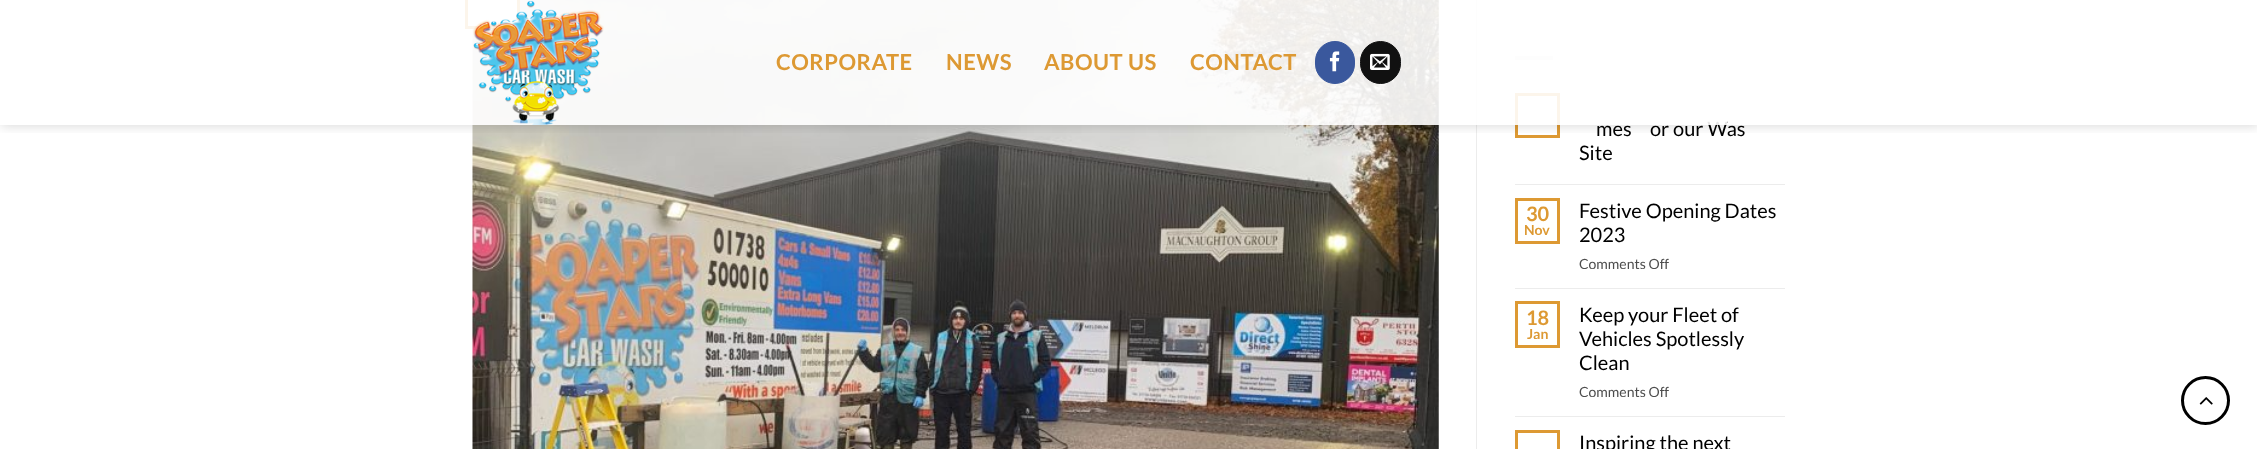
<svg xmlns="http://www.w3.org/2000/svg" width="2257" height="449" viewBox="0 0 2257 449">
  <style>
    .t1 { font: 20px Lato; fill: #000; }
    .t2 { font: bold 22px Lato; letter-spacing: 0.5px; fill: #d93; }
    .t3 { font: bold 20px Lato; fill: #d93; }
    .t4 { font: bold 14px Lato; fill: #d93; }
    .t5 { font: 14px Lato; fill: #4d4d4d; }
  </style>
  <defs>
    <clipPath id="clip1"><rect x="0" y="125" width="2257" height="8"/></clipPath>
  </defs>
  <rect width="100%" height="100%" fill="#fff"/>
  <image x="472" y="0" width="967" height="449" href="images/4.png"/>
  <rect x="472" y="0" width="45" height="26" fill="#fff"/>
  <rect x="466.5" y="-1.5" width="52" height="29" fill="none" stroke="#d93" stroke-width="3"/>
  <rect x="1476" y="0" width="1" height="449" fill="#ececec"/>
  <rect x="1515" y="56" width="38" height="4" fill="#e6e6e6"/>
  <rect x="1516.5" y="94.5" width="42" height="42" fill="none" stroke="#d93" stroke-width="3"/>
  <g clip-path="url(#clip1)">
    <rect x="1" y="1" width="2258" height="125" fill="#00000026" filter="blur(6px)"/>
  </g>
  <text x="1650" y="136" class="t1">or our Was</text>
  <rect x="465" y="0" width="1262" height="125" fill="#ffffffe6"/>
  <image x="473" y="0" width="131" height="125" href="images/1.png"/>
  <text x="776" y="70" class="t2">CORPORATE</text>
  <text x="946" y="70" class="t2">NEWS</text>
  <text x="1044" y="70" class="t2">ABOUT US</text>
  <text x="1190" y="70" class="t2">CONTACT</text>
  <rect x="1315.5" y="41.5" width="39" height="42" rx="19.5" fill="#3a589d" stroke="#3a589d"/>
  <image x="1329" y="51" width="11" height="21" href="images/2.png"/>
  <rect x="1360.5" y="41.5" width="40" height="42" rx="20" fill="#111" stroke="#111"/>
  <image x="1370" y="53" width="20" height="17" href="images/3.png"/>
  <text x="1596" y="136" class="t1">mes</text>
  <text x="1579" y="160" class="t1">Site</text>
  <rect x="1515" y="184" width="270" height="1" fill="#ececec"/>
  <rect x="1516.5" y="199.5" width="42" height="43" fill="none" stroke="#d93" stroke-width="3"/>
  <text x="1526" y="221" class="t3">30</text>
  <text x="1524" y="235" class="t4">Nov</text>
  <text x="1579" y="218" class="t1">Festive Opening Dates</text>
  <text x="1579" y="242" class="t1">2023</text>
  <text x="1579" y="269" class="t5">Comments Off</text>
  <rect x="1515" y="288" width="270" height="1" fill="#ececec"/>
  <rect x="1516.5" y="302.5" width="42" height="44" fill="none" stroke="#d93" stroke-width="3"/>
  <text x="1526" y="325" class="t3">18</text>
  <text x="1527" y="339" class="t4">Jan</text>
  <text x="1579" y="322" class="t1">Keep your Fleet of</text>
  <text x="1579" y="346" class="t1">Vehicles Spotlessly</text>
  <text x="1579" y="370" class="t1">Clean</text>
  <text x="1579" y="397" class="t5">Comments Off</text>
  <rect x="1515" y="416" width="270" height="1" fill="#ececec"/>
  <rect x="1516.5" y="431.5" width="42" height="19" fill="none" stroke="#d93" stroke-width="3"/>
  <text x="1579" y="450" class="t1">Inspiring the next</text>
  <circle cx="2205.5" cy="400.5" r="23" fill="none" stroke="#000" stroke-width="3"/>
  <image x="2199" y="397" width="14" height="8" href="images/5.png"/>
</svg>
